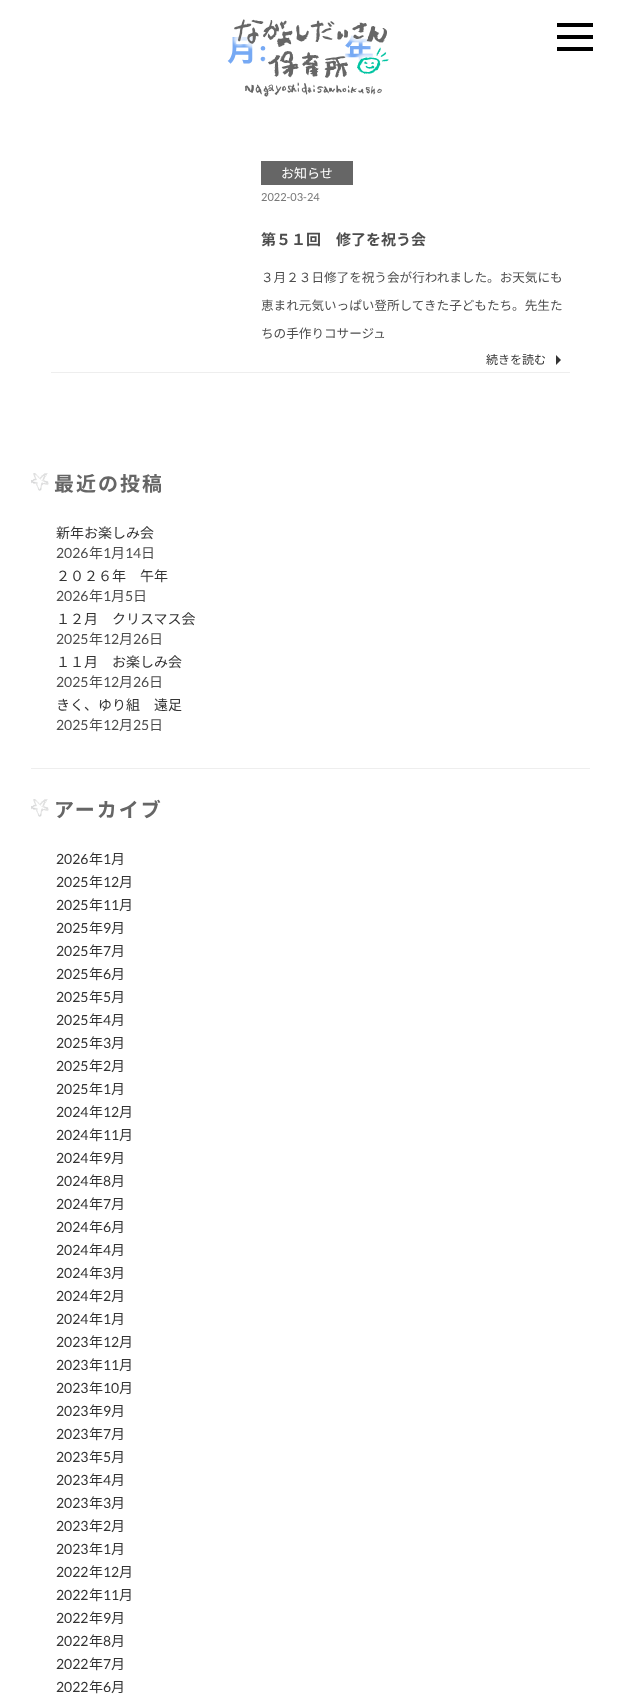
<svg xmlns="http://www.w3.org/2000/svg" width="621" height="1703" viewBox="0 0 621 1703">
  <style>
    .t1 { font: bold 30px Noto Sans JP; letter-spacing: 2px; fill: #76a9f4; }
    .t2 { font: bold 30px Lato; letter-spacing: 2px; fill: #76a9f4; }
    .t3 { font: bold 30px Noto Sans JP; letter-spacing: 1px; fill: #76a9f4; }
    .t4 { font: 13px Noto Sans JP; fill: #fff; }
    .t5 { font: 11px Lato; fill: #777; }
    .t6 { font: bold 15px Noto Sans JP; fill: #4d4d4d; }
    .t7 { font: 12.6px Noto Sans JP; fill: #4d4d4d; }
    .t8 { font: 12px Noto Sans JP; fill: #333; }
    .t9 { font: bold 20px Noto Sans JP; letter-spacing: 2px; fill: #666; }
    .t10 { font: 14px Noto Sans JP; fill: #333; }
    .t11 { font: 14px Lato; fill: #4d4d4d; }
    .t12 { font: 14px Noto Sans JP; fill: #4d4d4d; }
    .t13 { font: 14px Lato; fill: #333; }
  </style>
  <rect width="100%" height="100%" fill="#fff"/>
  <text x="227" y="61" class="t1">月</text>
  <text x="259" y="61" class="t2">:</text>
  <text x="344" y="61" class="t3">年</text>
  <image x="232" y="19" width="159" height="78" href="images/1.png"/>
  <rect x="557" y="23" width="36" height="4" fill="#000"/>
  <rect x="557" y="35" width="36" height="4" fill="#000"/>
  <rect x="557" y="47" width="36" height="4" fill="#000"/>
  <rect x="51" y="372" width="519" height="1" fill="#eee"/>
  <rect x="261" y="161" width="92" height="24" fill="#666"/>
  <text x="281" y="178" class="t4">お知らせ</text>
  <text x="261" y="201" class="t5">2022-03-24</text>
  <text x="261" y="245" class="t6">第５１回　修了を祝う会</text>
  <text x="261" y="282" class="t7">３月２３日修了を祝う会が行われました。お天気にも</text>
  <text x="261" y="310" class="t7">恵まれ元気いっぱい登所してきた子どもたち。先生た</text>
  <text x="261" y="338" class="t7">ちの手作りコサージュ</text>
  <text x="486" y="364" class="t8">続きを読む</text>
  <path d="M556 365V355L561 360Z" fill="#333"/>
  <rect x="31" y="768" width="559" height="1" fill="#eee"/>
  <image x="31" y="473" width="18" height="18" href="images/2.png"/>
  <text x="54" y="491" class="t9">最近の投稿</text>
  <text x="56" y="538" class="t10">新年お楽しみ会</text>
  <text x="56" y="558" class="t11">2026</text>
  <text x="89" y="558" class="t12">年</text>
  <text x="103" y="558" class="t11">1</text>
  <text x="111" y="558" class="t12">月</text>
  <text x="125" y="558" class="t11">14</text>
  <text x="141" y="558" class="t12">日</text>
  <text x="56" y="581" class="t10">２０２６年　午年</text>
  <text x="56" y="601" class="t11">2026</text>
  <text x="89" y="601" class="t12">年</text>
  <text x="103" y="601" class="t11">1</text>
  <text x="111" y="601" class="t12">月</text>
  <text x="125" y="601" class="t11">5</text>
  <text x="133" y="601" class="t12">日</text>
  <text x="56" y="624" class="t10">１２月　クリスマス会</text>
  <text x="56" y="644" class="t11">2025</text>
  <text x="89" y="644" class="t12">年</text>
  <text x="103" y="644" class="t11">12</text>
  <text x="119" y="644" class="t12">月</text>
  <text x="133" y="644" class="t11">26</text>
  <text x="149" y="644" class="t12">日</text>
  <text x="56" y="667" class="t10">１１月　お楽しみ会</text>
  <text x="56" y="687" class="t11">2025</text>
  <text x="89" y="687" class="t12">年</text>
  <text x="103" y="687" class="t11">12</text>
  <text x="119" y="687" class="t12">月</text>
  <text x="133" y="687" class="t11">26</text>
  <text x="149" y="687" class="t12">日</text>
  <text x="56" y="710" class="t10">きく、ゆり組　遠足</text>
  <text x="56" y="730" class="t11">2025</text>
  <text x="89" y="730" class="t12">年</text>
  <text x="103" y="730" class="t11">12</text>
  <text x="119" y="730" class="t12">月</text>
  <text x="133" y="730" class="t11">25</text>
  <text x="149" y="730" class="t12">日</text>
  <image x="31" y="799" width="18" height="18" href="images/2.png"/>
  <text x="54" y="817" class="t9">アーカイブ</text>
  <text x="56" y="864" class="t13">2026</text>
  <text x="89" y="864" class="t10">年</text>
  <text x="103" y="864" class="t13">1</text>
  <text x="111" y="864" class="t10">月</text>
  <text x="56" y="887" class="t13">2025</text>
  <text x="89" y="887" class="t10">年</text>
  <text x="103" y="887" class="t13">12</text>
  <text x="119" y="887" class="t10">月</text>
  <text x="56" y="910" class="t13">2025</text>
  <text x="89" y="910" class="t10">年</text>
  <text x="103" y="910" class="t13">11</text>
  <text x="119" y="910" class="t10">月</text>
  <text x="56" y="933" class="t13">2025</text>
  <text x="89" y="933" class="t10">年</text>
  <text x="103" y="933" class="t13">9</text>
  <text x="111" y="933" class="t10">月</text>
  <text x="56" y="956" class="t13">2025</text>
  <text x="89" y="956" class="t10">年</text>
  <text x="103" y="956" class="t13">7</text>
  <text x="111" y="956" class="t10">月</text>
  <text x="56" y="979" class="t13">2025</text>
  <text x="89" y="979" class="t10">年</text>
  <text x="103" y="979" class="t13">6</text>
  <text x="111" y="979" class="t10">月</text>
  <text x="56" y="1002" class="t13">2025</text>
  <text x="89" y="1002" class="t10">年</text>
  <text x="103" y="1002" class="t13">5</text>
  <text x="111" y="1002" class="t10">月</text>
  <text x="56" y="1025" class="t13">2025</text>
  <text x="89" y="1025" class="t10">年</text>
  <text x="103" y="1025" class="t13">4</text>
  <text x="111" y="1025" class="t10">月</text>
  <text x="56" y="1048" class="t13">2025</text>
  <text x="89" y="1048" class="t10">年</text>
  <text x="103" y="1048" class="t13">3</text>
  <text x="111" y="1048" class="t10">月</text>
  <text x="56" y="1071" class="t13">2025</text>
  <text x="89" y="1071" class="t10">年</text>
  <text x="103" y="1071" class="t13">2</text>
  <text x="111" y="1071" class="t10">月</text>
  <text x="56" y="1094" class="t13">2025</text>
  <text x="89" y="1094" class="t10">年</text>
  <text x="103" y="1094" class="t13">1</text>
  <text x="111" y="1094" class="t10">月</text>
  <text x="56" y="1117" class="t13">2024</text>
  <text x="89" y="1117" class="t10">年</text>
  <text x="103" y="1117" class="t13">12</text>
  <text x="119" y="1117" class="t10">月</text>
  <text x="56" y="1140" class="t13">2024</text>
  <text x="89" y="1140" class="t10">年</text>
  <text x="103" y="1140" class="t13">11</text>
  <text x="119" y="1140" class="t10">月</text>
  <text x="56" y="1163" class="t13">2024</text>
  <text x="89" y="1163" class="t10">年</text>
  <text x="103" y="1163" class="t13">9</text>
  <text x="111" y="1163" class="t10">月</text>
  <text x="56" y="1186" class="t13">2024</text>
  <text x="89" y="1186" class="t10">年</text>
  <text x="103" y="1186" class="t13">8</text>
  <text x="111" y="1186" class="t10">月</text>
  <text x="56" y="1209" class="t13">2024</text>
  <text x="89" y="1209" class="t10">年</text>
  <text x="103" y="1209" class="t13">7</text>
  <text x="111" y="1209" class="t10">月</text>
  <text x="56" y="1232" class="t13">2024</text>
  <text x="89" y="1232" class="t10">年</text>
  <text x="103" y="1232" class="t13">6</text>
  <text x="111" y="1232" class="t10">月</text>
  <text x="56" y="1255" class="t13">2024</text>
  <text x="89" y="1255" class="t10">年</text>
  <text x="103" y="1255" class="t13">4</text>
  <text x="111" y="1255" class="t10">月</text>
  <text x="56" y="1278" class="t13">2024</text>
  <text x="89" y="1278" class="t10">年</text>
  <text x="103" y="1278" class="t13">3</text>
  <text x="111" y="1278" class="t10">月</text>
  <text x="56" y="1301" class="t13">2024</text>
  <text x="89" y="1301" class="t10">年</text>
  <text x="103" y="1301" class="t13">2</text>
  <text x="111" y="1301" class="t10">月</text>
  <text x="56" y="1324" class="t13">2024</text>
  <text x="89" y="1324" class="t10">年</text>
  <text x="103" y="1324" class="t13">1</text>
  <text x="111" y="1324" class="t10">月</text>
  <text x="56" y="1347" class="t13">2023</text>
  <text x="89" y="1347" class="t10">年</text>
  <text x="103" y="1347" class="t13">12</text>
  <text x="119" y="1347" class="t10">月</text>
  <text x="56" y="1370" class="t13">2023</text>
  <text x="89" y="1370" class="t10">年</text>
  <text x="103" y="1370" class="t13">11</text>
  <text x="119" y="1370" class="t10">月</text>
  <text x="56" y="1393" class="t13">2023</text>
  <text x="89" y="1393" class="t10">年</text>
  <text x="103" y="1393" class="t13">10</text>
  <text x="119" y="1393" class="t10">月</text>
  <text x="56" y="1416" class="t13">2023</text>
  <text x="89" y="1416" class="t10">年</text>
  <text x="103" y="1416" class="t13">9</text>
  <text x="111" y="1416" class="t10">月</text>
  <text x="56" y="1439" class="t13">2023</text>
  <text x="89" y="1439" class="t10">年</text>
  <text x="103" y="1439" class="t13">7</text>
  <text x="111" y="1439" class="t10">月</text>
  <text x="56" y="1462" class="t13">2023</text>
  <text x="89" y="1462" class="t10">年</text>
  <text x="103" y="1462" class="t13">5</text>
  <text x="111" y="1462" class="t10">月</text>
  <text x="56" y="1485" class="t13">2023</text>
  <text x="89" y="1485" class="t10">年</text>
  <text x="103" y="1485" class="t13">4</text>
  <text x="111" y="1485" class="t10">月</text>
  <text x="56" y="1508" class="t13">2023</text>
  <text x="89" y="1508" class="t10">年</text>
  <text x="103" y="1508" class="t13">3</text>
  <text x="111" y="1508" class="t10">月</text>
  <text x="56" y="1531" class="t13">2023</text>
  <text x="89" y="1531" class="t10">年</text>
  <text x="103" y="1531" class="t13">2</text>
  <text x="111" y="1531" class="t10">月</text>
  <text x="56" y="1554" class="t13">2023</text>
  <text x="89" y="1554" class="t10">年</text>
  <text x="103" y="1554" class="t13">1</text>
  <text x="111" y="1554" class="t10">月</text>
  <text x="56" y="1577" class="t13">2022</text>
  <text x="89" y="1577" class="t10">年</text>
  <text x="103" y="1577" class="t13">12</text>
  <text x="119" y="1577" class="t10">月</text>
  <text x="56" y="1600" class="t13">2022</text>
  <text x="89" y="1600" class="t10">年</text>
  <text x="103" y="1600" class="t13">11</text>
  <text x="119" y="1600" class="t10">月</text>
  <text x="56" y="1623" class="t13">2022</text>
  <text x="89" y="1623" class="t10">年</text>
  <text x="103" y="1623" class="t13">9</text>
  <text x="111" y="1623" class="t10">月</text>
  <text x="56" y="1646" class="t13">2022</text>
  <text x="89" y="1646" class="t10">年</text>
  <text x="103" y="1646" class="t13">8</text>
  <text x="111" y="1646" class="t10">月</text>
  <text x="56" y="1669" class="t13">2022</text>
  <text x="89" y="1669" class="t10">年</text>
  <text x="103" y="1669" class="t13">7</text>
  <text x="111" y="1669" class="t10">月</text>
  <text x="56" y="1692" class="t13">2022</text>
  <text x="89" y="1692" class="t10">年</text>
  <text x="103" y="1692" class="t13">6</text>
  <text x="111" y="1692" class="t10">月</text>
</svg>
